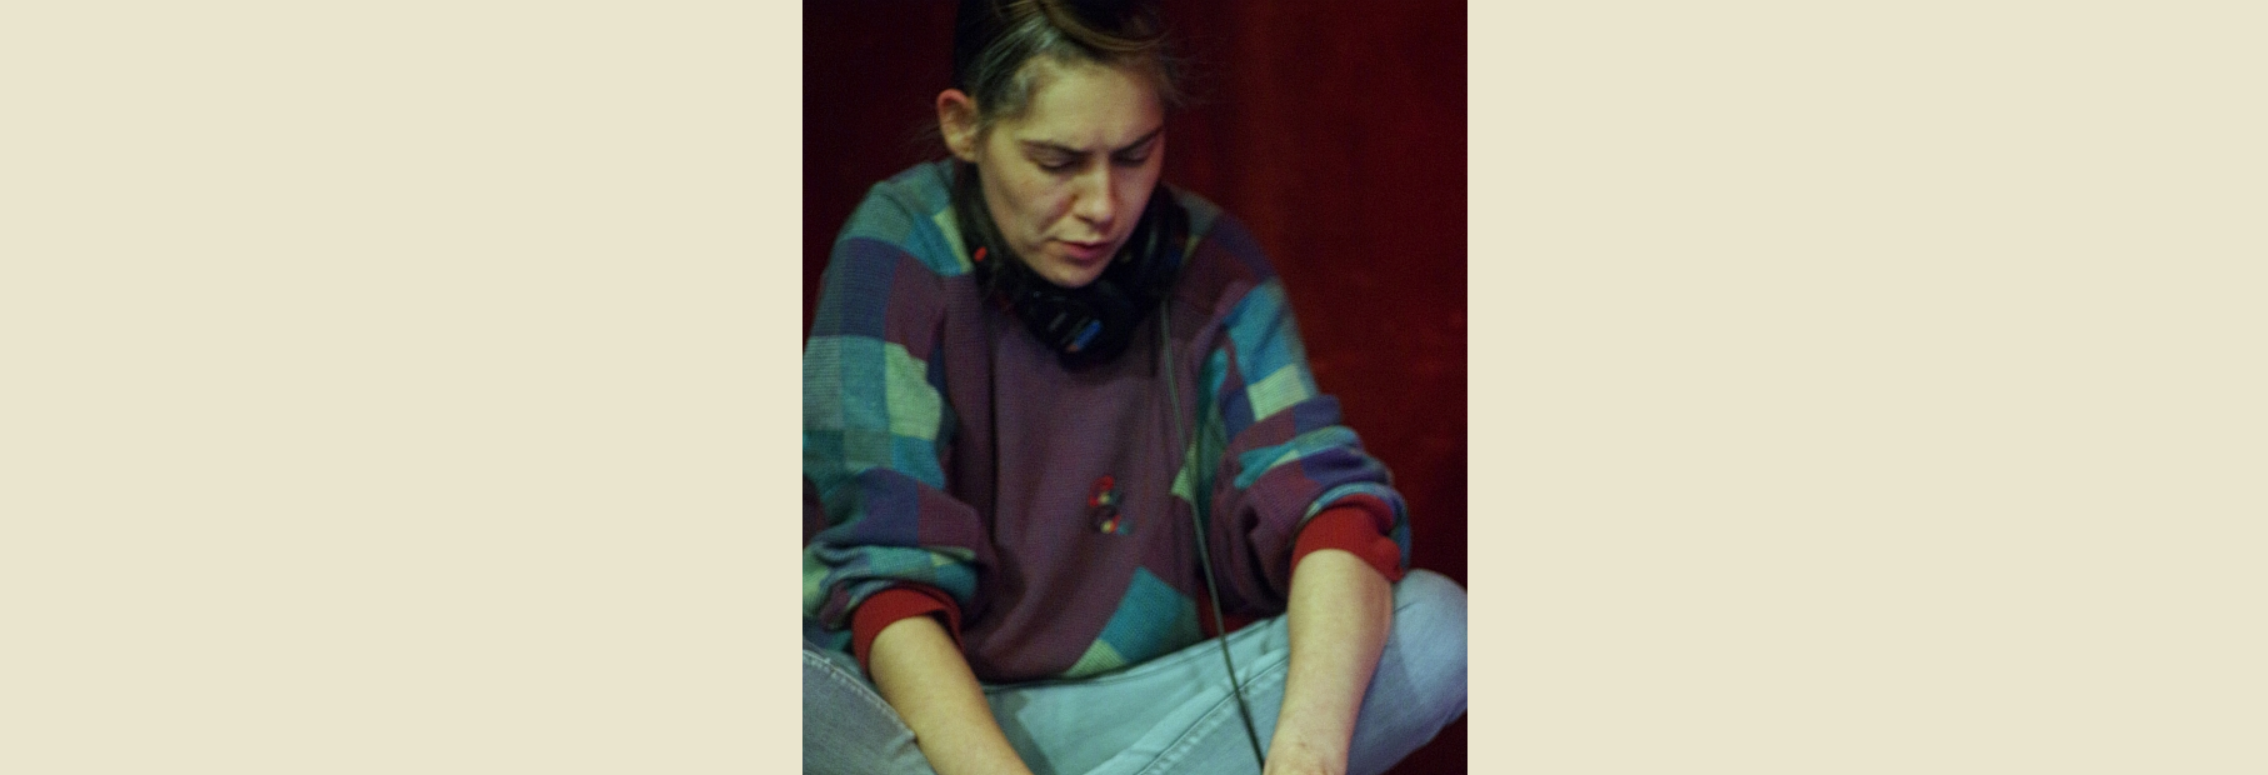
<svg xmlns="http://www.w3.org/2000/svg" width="2268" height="775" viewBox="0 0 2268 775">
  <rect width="100%" height="100%" fill="#eae5ce"/>
  <image x="802" y="0" width="666" height="775" href="images/1.png"/>
</svg>
